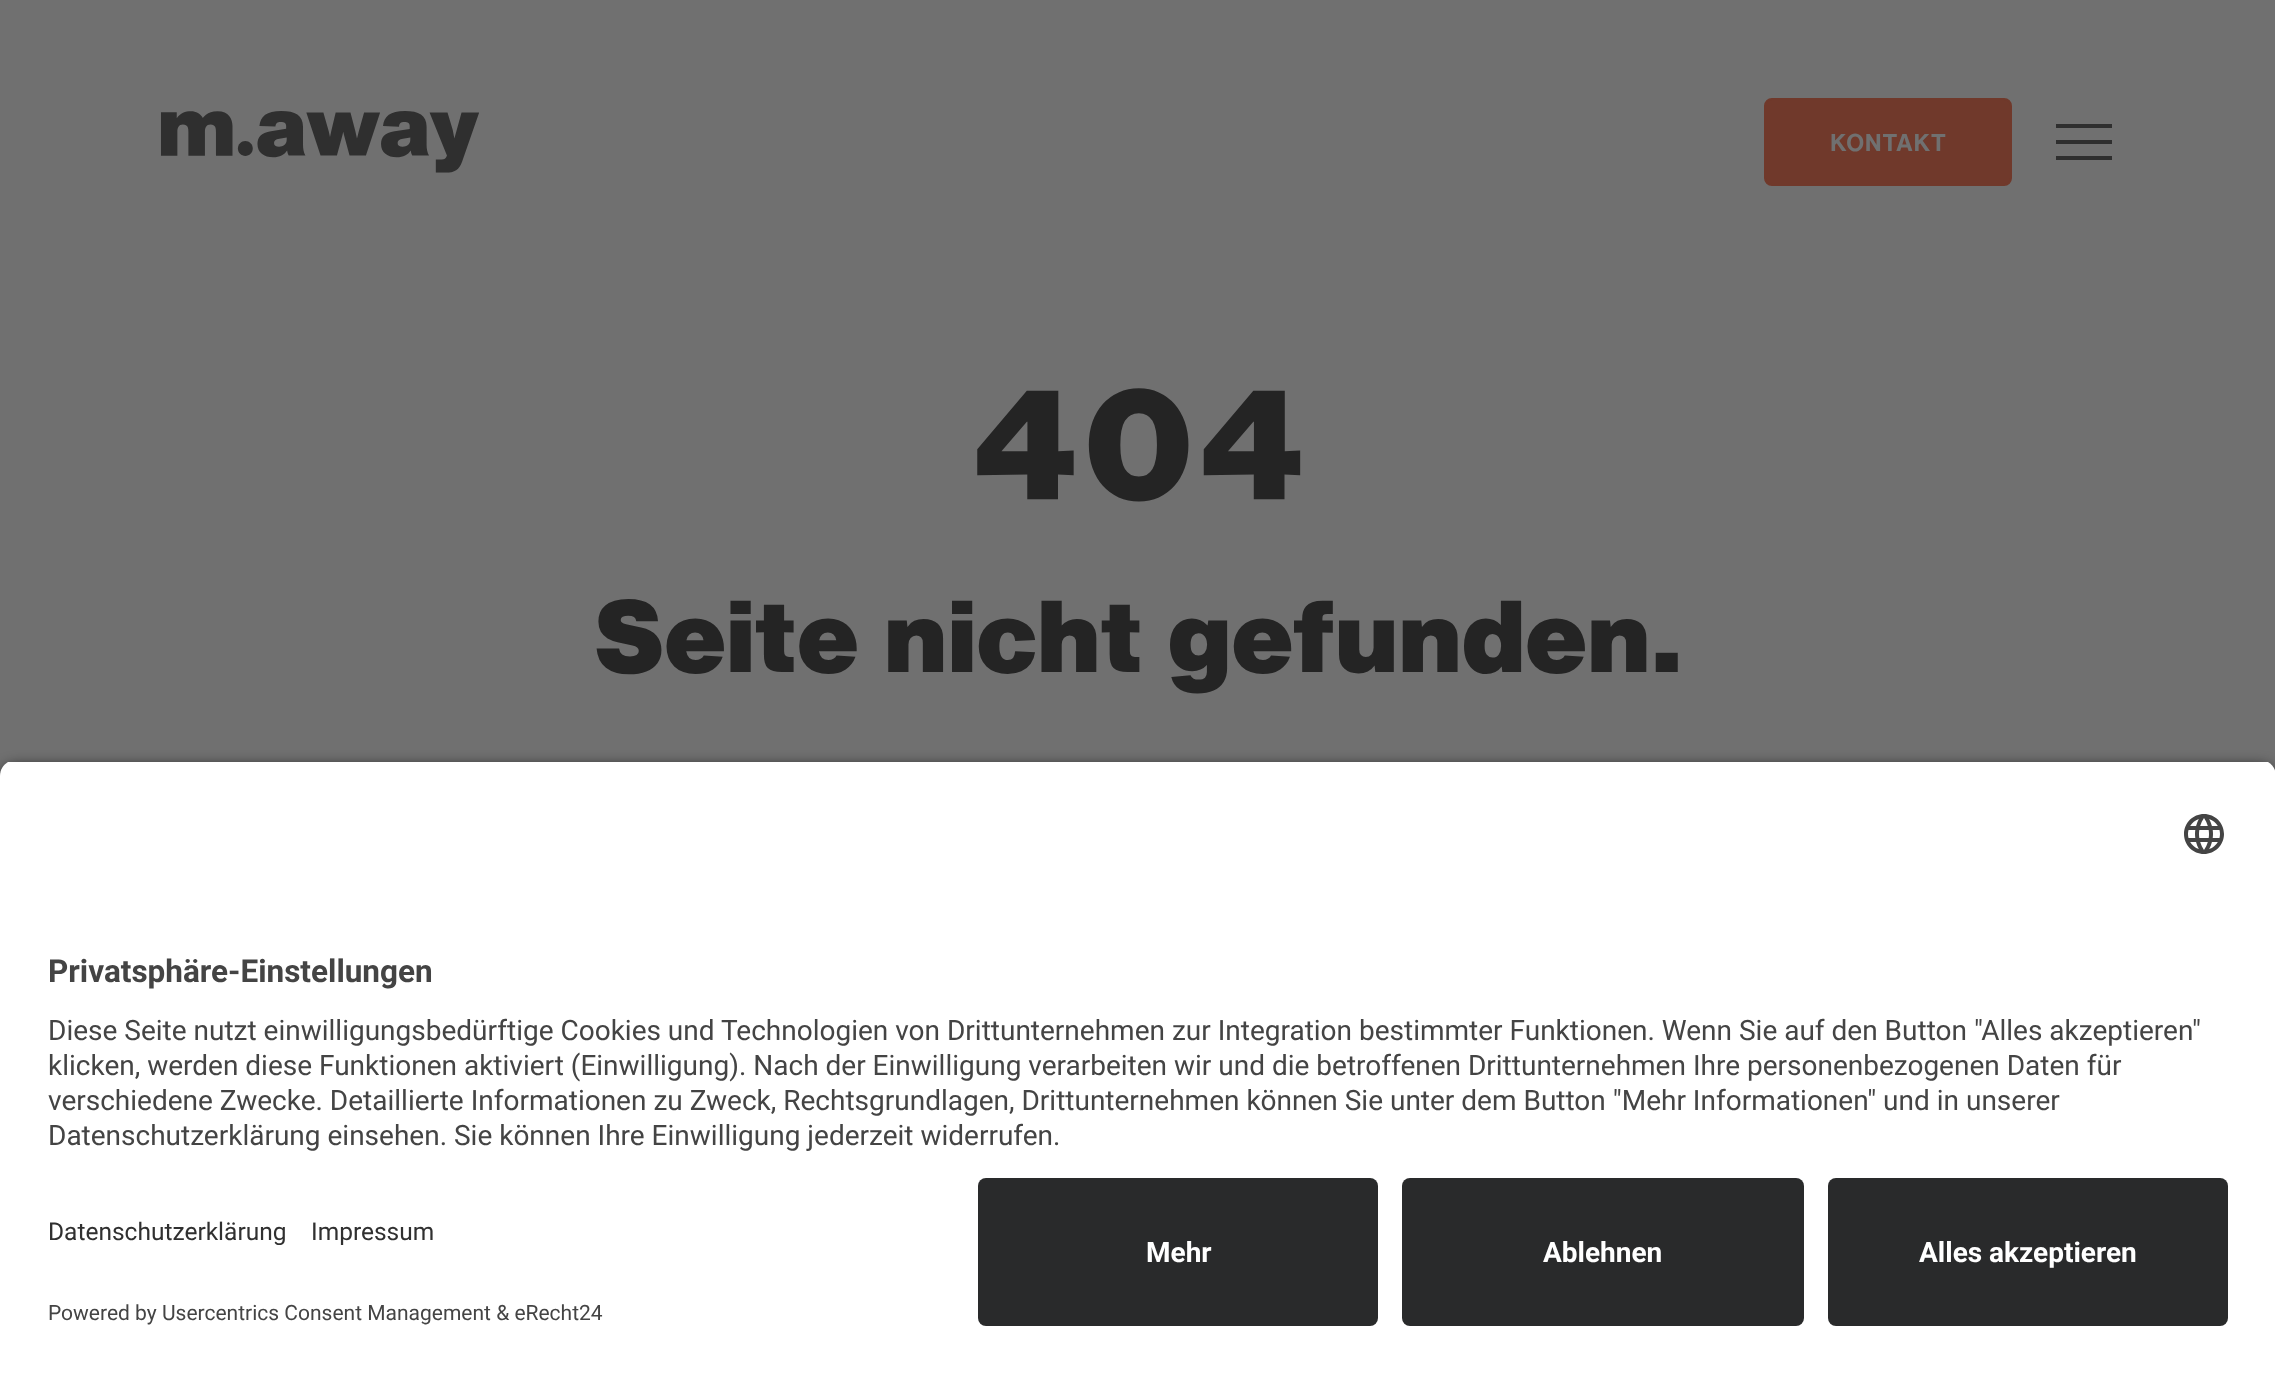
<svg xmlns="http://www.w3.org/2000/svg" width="2275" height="1374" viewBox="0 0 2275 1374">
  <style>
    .t1 { font: bold 24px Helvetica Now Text; letter-spacing: 0.75px; fill: #707070; }
    .t2 { font: 900 152px Helvetica Now Text; letter-spacing: -1.5px; fill: #242424; }
    .t3 { font: 900 100px Helvetica Now Text; letter-spacing: -1px; fill: #242424; }
    .t4 { font: bold 31.5px Roboto; fill: #444; }
    .t5 { font: 28px Roboto; fill: #444; }
    .t6 { font: 24.5px Roboto; fill: #303030; }
    .t7 { font: 21px Roboto; fill: #444; }
    .t8 { font: bold 28px Roboto; fill: #fff; }
  </style>
  <defs>
    <clipPath id="clip1"><path d="M16 760H2260C2269 760 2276 767 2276 776V1162H0V776C0 767 7 760 16 760Z"/></clipPath>
  </defs>
  <rect width="100%" height="100%" fill="#707070"/>
  <image x="160" y="111" width="319" height="62" href="images/1.png"/>
  <rect x="1765" y="99" width="246" height="86" rx="7" fill="#70392b" stroke="#70392b" stroke-width="2"/>
  <text x="1830" y="151" class="t1">KONTAKT</text>
  <rect x="2056" y="124" width="56" height="4" fill="#2f2f2f"/>
  <rect x="2056" y="140" width="56" height="4" fill="#2f2f2f"/>
  <rect x="2056" y="156" width="56" height="4" fill="#2f2f2f"/>
  <text x="968" y="499" class="t2">404</text>
  <text x="593" y="672" class="t3">Seite nicht gefunden.</text>
  <rect x="0" y="766" width="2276" height="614" rx="16" fill="#000000cc" filter="blur(7px)"/>
  <g clip-path="url(#clip1)">
    <rect x="0" y="762" width="2275" height="400" fill="#fff"/>
  </g>
  <image x="2184" y="814" width="40" height="40" href="images/2.png"/>
  <text x="48" y="982" class="t4">Privatsphäre-Einstellungen</text>
  <text x="48" y="1040" class="t5">Diese Seite nutzt einwilligungsbedürftige Cookies und Technologien von Drittunternehmen zur Integration bestimmter Funktionen. Wenn Sie auf den Button "Alles akzeptieren"</text>
  <text x="48" y="1075" class="t5">klicken, werden diese Funktionen aktiviert (Einwilligung). Nach der Einwilligung verarbeiten wir und die betroffenen Drittunternehmen Ihre personenbezogenen Daten für</text>
  <text x="48" y="1110" class="t5">verschiedene Zwecke. Detaillierte Informationen zu Zweck, Rechtsgrundlagen, Drittunternehmen können Sie unter dem Button "Mehr Informationen" und in unserer</text>
  <text x="48" y="1145" class="t5">Datenschutzerklärung einsehen. Sie können Ihre Einwilligung jederzeit widerrufen.</text>
  <rect x="0" y="1162" width="2275" height="212" fill="#fff"/>
  <text x="48" y="1240" class="t6">Datenschutzerklärung</text>
  <text x="311" y="1240" class="t6">Impressum</text>
  <text x="48" y="1320" class="t7">Powered by Usercentrics Consent Management &amp; eRecht24</text>
  <rect x="978" y="1178" width="400" height="148" rx="8" fill="#292a2b"/>
  <text x="1146" y="1262" class="t8">Mehr</text>
  <rect x="1402" y="1178" width="402" height="148" rx="8" fill="#292a2b"/>
  <text x="1543" y="1262" class="t8">Ablehnen</text>
  <rect x="1828" y="1178" width="400" height="148" rx="8" fill="#292a2b"/>
  <text x="1919" y="1262" class="t8">Alles akzeptieren</text>
</svg>
